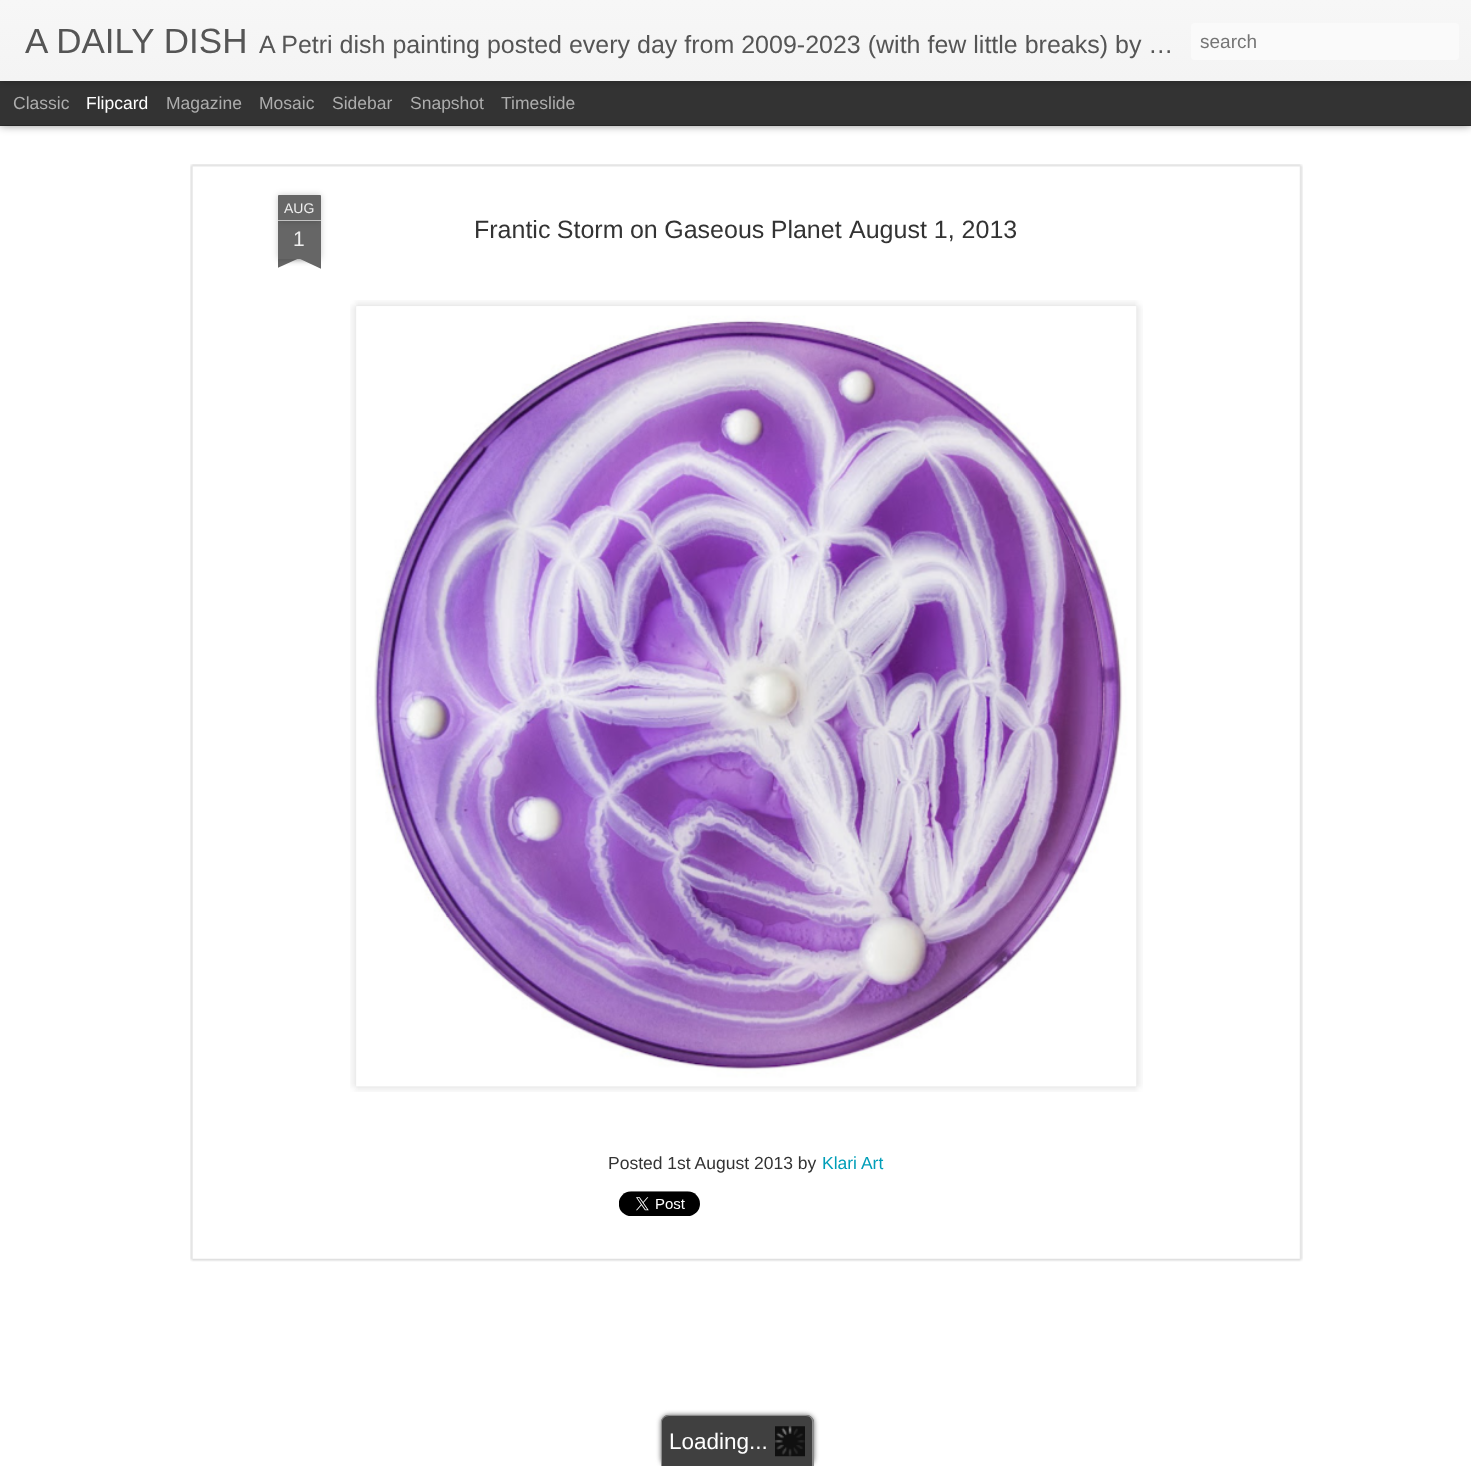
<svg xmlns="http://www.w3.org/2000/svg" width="1471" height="1466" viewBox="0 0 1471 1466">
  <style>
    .t1 { font: 35px Liberation Sans; fill: #555; }
    .t2 { font: 25px Liberation Sans; fill: #555; }
    .t3 { font: 19px Liberation Sans; fill: #757575; }
    .t4 { font: 17.5px Liberation Sans; fill: #adadad; }
    .t5 { font: 17.5px Liberation Sans; fill: #fff; }
    .t6 { font: 14px Liberation Sans; fill: #eee; }
    .t7 { font: 21px Liberation Sans; fill: #eee; }
    .t8 { font: 25px Liberation Sans; fill: #333; }
    .t9 { font: 17.5px Liberation Sans; fill: #333; }
    .t10 { font: 17.5px Liberation Sans; fill: #009eb8; }
    .t11 { font: 22.5px Liberation Sans; fill: #fff; }
  </style>
  <defs>
    <linearGradient id="g1" gradientUnits="userSpaceOnUse" x1="0" y1="0" x2="0" y2="81"><stop offset="0" stop-color="#f7f7f7"/><stop offset="1" stop-color="#f4f4f4"/></linearGradient>
    <clipPath id="clip1"><rect x="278" y="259" width="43" height="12"/></clipPath>
    <clipPath id="clip2"><rect x="278" y="259" width="43" height="12"/></clipPath>
  </defs>
  <rect width="100%" height="100%" fill="#333"/>
  <rect x="0" y="126" width="1471" height="1340" fill="#fff"/>
  <rect x="0" y="81" width="1471" height="44" fill="#00000080" filter="blur(5px)"/>
  <rect x="0" y="81" width="1471" height="44" fill="#333"/>
  <rect x="0" y="0" width="1471" height="81" fill="#0000004d" filter="blur(3px)"/>
  <rect x="0" y="0" width="1471" height="81" fill="url(#g1)"/>
  <text x="25" y="53" class="t1">A DAILY DISH</text>
  <text x="259" y="53" class="t2">A Petri dish painting posted every day from 2009-2023 (with few little breaks) by …</text>
  <rect x="1191" y="23" width="268" height="37" rx="4" fill="#fafafa"/>
  <text x="1200" y="48" class="t3">search</text>
  <text x="13" y="109" class="t4">Classic</text>
  <text x="86" y="109" class="t5">Flipcard</text>
  <text x="166" y="109" class="t4">Magazine</text>
  <text x="259" y="109" class="t4">Mosaic</text>
  <text x="332" y="109" class="t4">Sidebar</text>
  <text x="410" y="109" class="t4">Snapshot</text>
  <text x="501" y="109" class="t4">Timeslide</text>
  <image x="190" y="164" width="1113" height="1098" href="images/1.png"/>
  <rect x="278" y="221" width="43" height="38" fill="#00000033" filter="blur(3px)"/>
  <rect x="278" y="221" width="43" height="38" fill="#666"/>
  <rect x="278" y="195" width="43" height="26" rx="1" fill="#00000033" filter="blur(3px)"/>
  <path d="M279 195H320C320.5 195 321 195.5 321 196V221H278V196C278 195.5 278.5 195 279 195Z" fill="#666"/>
  <rect x="278" y="220" width="43" height="1" fill="#c2c2c2"/>
  <text x="284" y="213" class="t6">AUG</text>
  <text x="293" y="246" class="t7">1</text>
  <g clip-path="url(#clip1)">
    <rect x="266" y="246" width="63" height="13" fill="#00000033" filter="blur(3px)"/>
  </g>
  <g clip-path="url(#clip2)">
    <path d="M266 260L323 234L328 245L271 271Z" fill="#666"/>
  </g>
  <g clip-path="url(#clip1)">
    <rect x="270" y="246" width="63" height="13" fill="#00000033" filter="blur(3px)"/>
  </g>
  <g clip-path="url(#clip2)">
    <path d="M275 234L332 260L326 271L270 245Z" fill="#666"/>
  </g>
  <text x="474" y="238" word-spacing="-0.5" class="t8">Frantic Storm on Gaseous Planet</text>
  <text x="849" y="238" class="t8">August 1, 2013</text>
  <image x="350" y="300" width="793" height="792" href="images/2.png"/>
  <image x="356" y="306" width="781" height="781" href="images/3.png"/>
  <text x="608" y="1169" class="t9">Posted 1st August 2013 by</text>
  <text x="822" y="1169" class="t10">Klari Art</text>
  <image x="619" y="1191" width="81" height="25" href="images/4.png"/>
  <rect x="661" y="1415" width="153" height="51" rx="8" fill="#666" filter="blur(2.5px)"/>
  <path d="M669 1415H806C810.5 1415 814 1418.5 814 1423V1466H661V1423C661 1418.5 664.5 1415 669 1415Z" fill="#404040"/>
  <path d="M669 1415H806C810 1415 814 1418 814 1422V1466H661V1422C661 1418 665 1415 669 1415ZM669 1416H806C810 1416 812 1419 812 1422V1466H662V1422C662 1419 665 1416 669 1416Z" fill="#8c8c8c" fill-rule="evenodd"/>
  <image x="775" y="1426" width="30" height="31" href="images/5.png"/>
  <text x="669" y="1449" class="t11">Loading...</text>
</svg>
